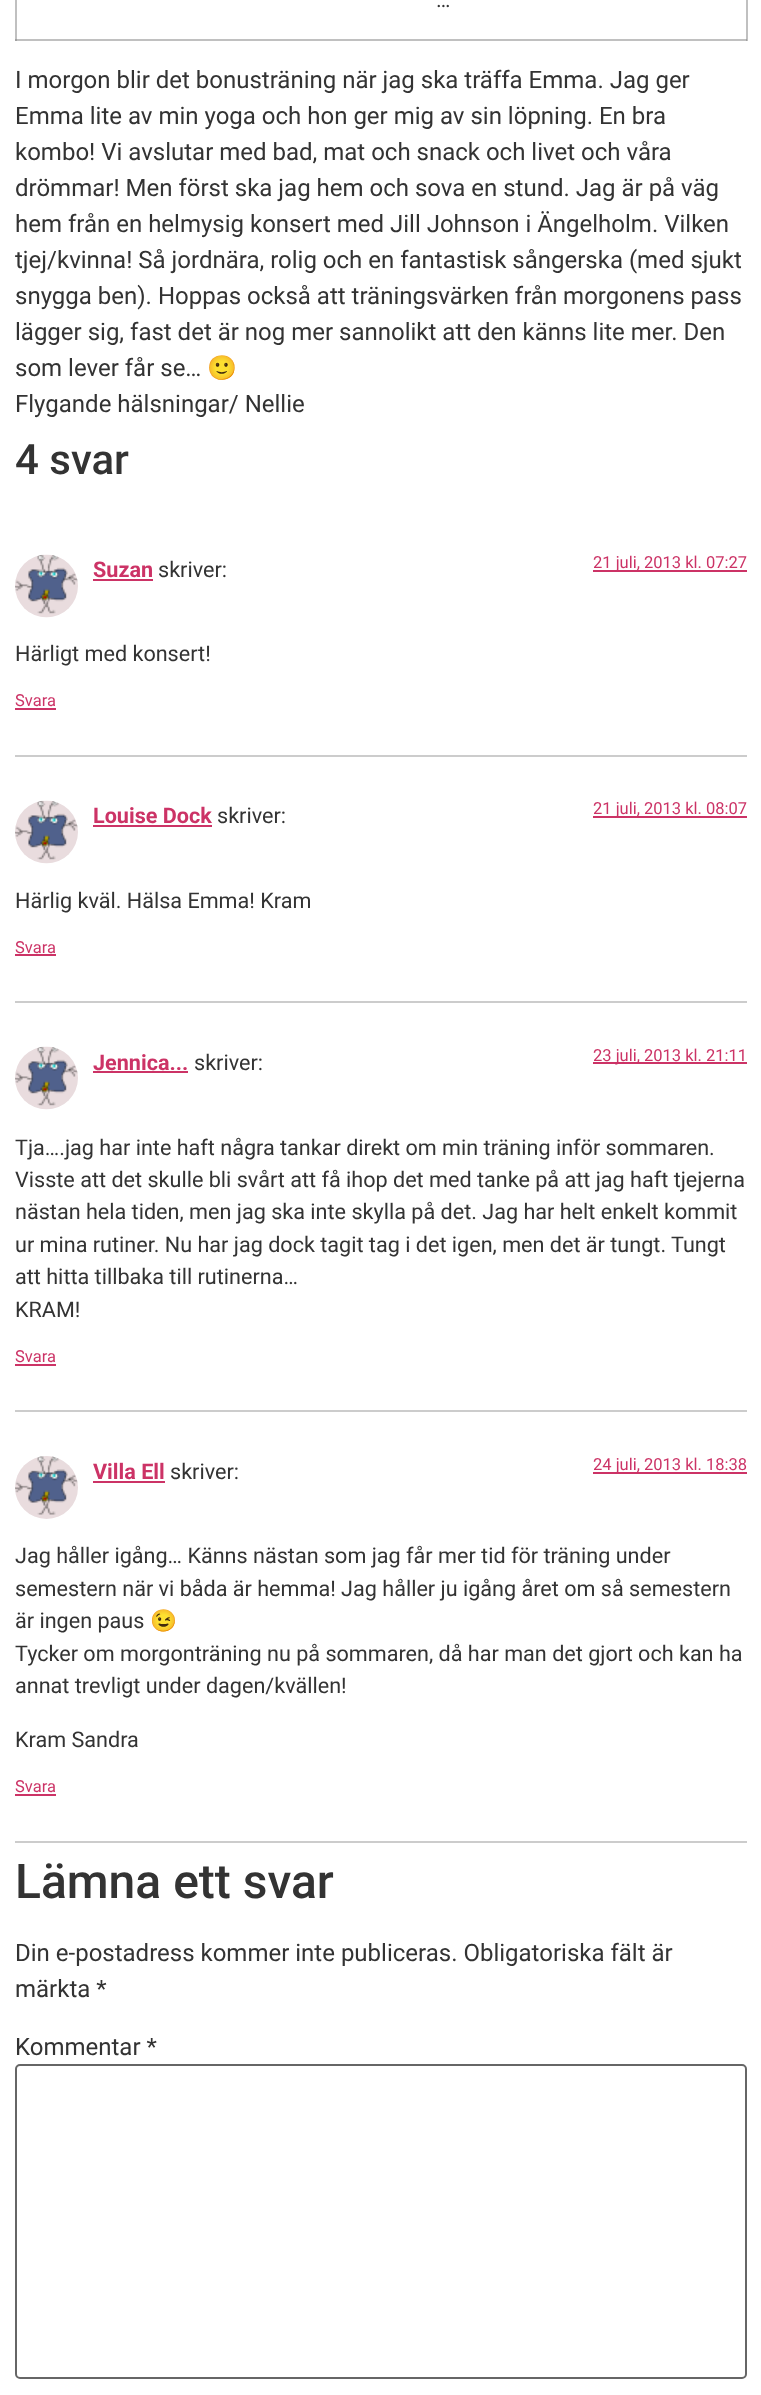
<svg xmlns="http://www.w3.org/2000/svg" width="761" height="2395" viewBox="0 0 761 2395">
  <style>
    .t1 { font: 21.6px Roboto; fill: #333; }
    .t2 { font: 24px Roboto; fill: #333; }
    .t3 { font: 24px Noto Color Emoji; fill: #333; }
    .t4 { font: 500 42px Roboto; fill: #333; }
    .t5 { font: bold 21.6px Roboto; fill: #c36; }
    .t6 { font: 16.5px Roboto; fill: #c36; }
    .t7 { font: 21.6px Noto Color Emoji; fill: #333; }
    .t8 { font: 500 48px Roboto; fill: #333; }
  </style>
  <rect width="100%" height="100%" fill="#fff"/>
  <rect x="15" y="0" width="2" height="41" fill="#c0c0c0"/>
  <rect x="15" y="39" width="732" height="2" fill="#c0c0c0"/>
  <rect x="15" y="39" width="2" height="2" fill="#a0a0a0"/>
  <rect x="746" y="0" width="2" height="41" fill="#c0c0c0"/>
  <rect x="746" y="39" width="1" height="2" fill="#a0a0a0"/>
  <text x="436" y="7" class="t1">…</text>
  <text x="15" y="88" class="t2">I morgon blir det bonusträning när jag ska träffa Emma. Jag ger</text>
  <text x="15" y="124" class="t2">Emma lite av min yoga och hon ger mig av sin löpning. En bra</text>
  <text x="15" y="160" class="t2">kombo! Vi avslutar med bad, mat och snack och livet och våra</text>
  <text x="15" y="196" class="t2">drömmar! Men först ska jag hem och sova en stund. Jag är på väg</text>
  <text x="15" y="232" class="t2">hem från en helmysig konsert med Jill Johnson i Ängelholm. Vilken</text>
  <text x="15" y="268" class="t2">tjej/kvinna! Så jordnära, rolig och en fantastisk sångerska (med sjukt</text>
  <text x="15" y="304" class="t2">snygga ben). Hoppas också att träningsvärken från morgonens pass</text>
  <text x="15" y="340" class="t2">lägger sig, fast det är nog mer sannolikt att den känns lite mer. Den</text>
  <text x="15" y="376" class="t2">som lever får se…</text>
  <text x="207" y="376" class="t3">🙂</text>
  <text x="15" y="412" class="t2">Flygande hälsningar/ Nellie</text>
  <text x="15" y="474" class="t4">4 svar</text>
  <rect x="15" y="755" width="732" height="2" fill="#ccc"/>
  <image x="15" y="554" width="63" height="64" href="images/1.png"/>
  <text x="93" y="577" class="t5">Suzan</text>
  <rect x="93" y="579" width="60" height="2" fill="#c36"/>
  <text x="158" y="577" class="t1">skriver:</text>
  <rect x="593" y="570" width="154" height="2" fill="#c36"/>
  <text x="593" y="568" class="t6">21 juli, 2013 kl. 07:27</text>
  <text x="15" y="661" class="t1">Härligt med konsert!</text>
  <text x="15" y="706" class="t6">Svara</text>
  <rect x="15" y="708" width="41" height="2" fill="#c36"/>
  <rect x="15" y="1001" width="732" height="2" fill="#ccc"/>
  <image x="15" y="800" width="63" height="64" href="images/1.png"/>
  <text x="93" y="823" class="t5">Louise Dock</text>
  <rect x="93" y="825" width="119" height="2" fill="#c36"/>
  <text x="217" y="823" class="t1">skriver:</text>
  <rect x="593" y="816" width="154" height="2" fill="#c36"/>
  <text x="593" y="814" class="t6">21 juli, 2013 kl. 08:07</text>
  <text x="15" y="908" class="t1">Härlig kväl. Hälsa Emma! Kram</text>
  <text x="15" y="953" class="t6">Svara</text>
  <rect x="15" y="954" width="41" height="2" fill="#c36"/>
  <rect x="15" y="1410" width="732" height="2" fill="#ccc"/>
  <image x="15" y="1046" width="63" height="64" href="images/1.png"/>
  <text x="93" y="1070" class="t5">Jennica...</text>
  <rect x="93" y="1071" width="95" height="2" fill="#c36"/>
  <text x="194" y="1070" class="t1">skriver:</text>
  <rect x="593" y="1062" width="154" height="2" fill="#c36"/>
  <text x="593" y="1061" class="t6">23 juli, 2013 kl. 21:11</text>
  <text x="15" y="1155" class="t1">Tja….jag har inte haft några tankar direkt om min träning inför sommaren.</text>
  <text x="15" y="1187" class="t1">Visste att det skulle bli svårt att få ihop det med tanke på att jag haft tjejerna</text>
  <text x="15" y="1219" class="t1">nästan hela tiden, men jag ska inte skylla på det. Jag har helt enkelt kommit</text>
  <text x="15" y="1252" class="t1">ur mina rutiner. Nu har jag dock tagit tag i det igen, men det är tungt. Tungt</text>
  <text x="15" y="1284" class="t1">att hitta tillbaka till rutinerna…</text>
  <text x="15" y="1317" class="t1">KRAM!</text>
  <text x="15" y="1362" class="t6">Svara</text>
  <rect x="15" y="1364" width="41" height="2" fill="#c36"/>
  <rect x="15" y="1841" width="732" height="2" fill="#ccc"/>
  <image x="15" y="1456" width="63" height="63" href="images/2.png"/>
  <text x="93" y="1479" class="t5">Villa Ell</text>
  <rect x="93" y="1481" width="72" height="2" fill="#c36"/>
  <text x="170" y="1479" class="t1">skriver:</text>
  <rect x="593" y="1472" width="154" height="2" fill="#c36"/>
  <text x="593" y="1470" class="t6">24 juli, 2013 kl. 18:38</text>
  <text x="15" y="1563" class="t1">Jag håller igång… Känns nästan som jag får mer tid för träning under</text>
  <text x="15" y="1596" class="t1">semestern när vi båda är hemma! Jag håller ju igång året om så semestern</text>
  <text x="15" y="1628" class="t1">är ingen paus</text>
  <text x="150" y="1628" class="t7">😉</text>
  <text x="15" y="1661" class="t1">Tycker om morgonträning nu på sommaren, då har man det gjort och kan ha</text>
  <text x="15" y="1693" class="t1">annat trevligt under dagen/kvällen!</text>
  <text x="15" y="1747" class="t1">Kram Sandra</text>
  <text x="15" y="1792" class="t6">Svara</text>
  <rect x="15" y="1794" width="41" height="2" fill="#c36"/>
  <text x="15" y="1898" class="t8">Lämna ett svar</text>
  <text x="15" y="1961" class="t2">Din e-postadress kommer inte publiceras. Obligatoriska fält är</text>
  <text x="15" y="1997" class="t2">märkta *</text>
  <text x="15" y="2055" class="t2">Kommentar *</text>
  <rect x="16" y="2065" width="730" height="313" rx="4" fill="none" stroke="#666" stroke-width="2"/>
</svg>
